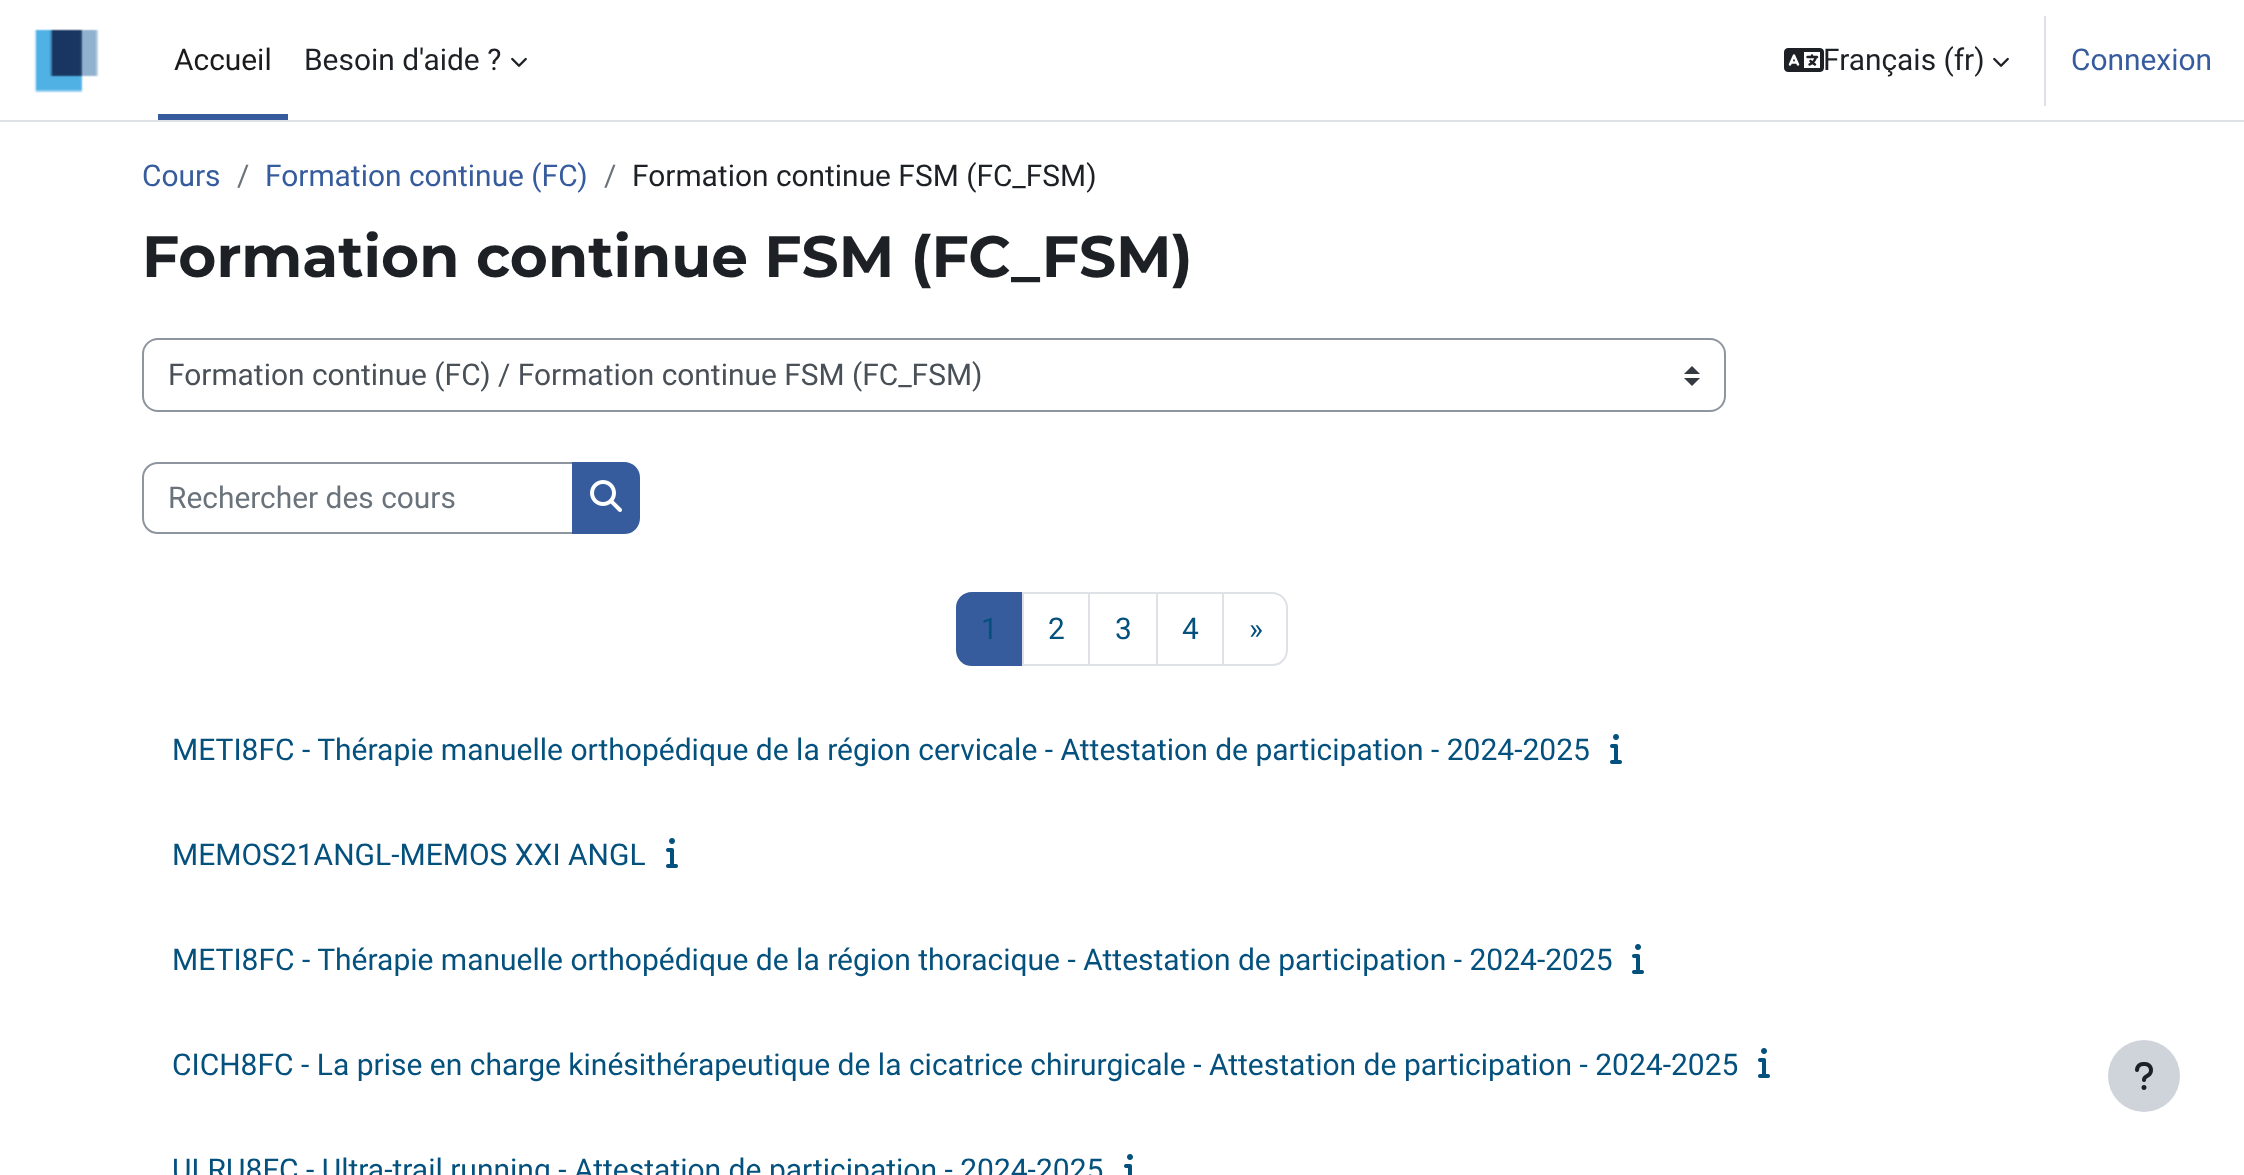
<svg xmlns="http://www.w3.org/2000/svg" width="2244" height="1175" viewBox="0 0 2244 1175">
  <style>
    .t1 { font: 29.9px Roboto; fill: #1a1a1a; }
    .t2 { font: 29.9px Roboto; fill: #1d2125; }
    .t3 { font: 29.9px Roboto; fill: #365c9d; }
    .t4 { font: 29.9px Roboto; fill: #6a737b; }
    .t5 { font: bold 58.2px Montserrat; fill: #1d2125; }
    .t6 { font: 29.9px Roboto; fill: #495057; }
    .t7 { font: 29.9px Roboto; fill: #05517e; }
    .t8 { font: 30px Roboto; fill: #05517e; }
  </style>
  <rect width="100%" height="100%" fill="#fff"/>
  <rect x="0" y="120" width="2244" height="2" fill="#dee2e6"/>
  <image x="33" y="29" width="66" height="64" href="images/1.png"/>
  <rect x="158" y="114" width="130" height="6" fill="#365c9d"/>
  <text x="174" y="70" class="t1">Accueil</text>
  <text x="304" y="70" class="t2">Besoin d'aide ?</text>
  <image x="511" y="57" width="16" height="10" href="images/2.png"/>
  <image x="1784" y="48" width="40" height="24" href="images/3.png"/>
  <text x="1823" y="70" class="t2">Français (fr)</text>
  <image x="1993" y="57" width="16" height="10" href="images/2.png"/>
  <rect x="2044" y="16" width="2" height="90" fill="#dee2e6"/>
  <text x="2071" y="70" class="t3">Connexion</text>
  <text x="142" y="186" class="t3">Cours</text>
  <text x="237" y="186" class="t4">/</text>
  <text x="265" y="186" class="t3">Formation continue (FC)</text>
  <text x="604" y="186" class="t4">/</text>
  <text x="632" y="186" class="t2">Formation continue FSM (FC_FSM)</text>
  <text x="142" y="277" class="t5">Formation continue FSM (FC_FSM)</text>
  <path d="M1692 366L1684 374H1700ZM1692 386L1684 378H1700Z" fill="#343a40"/>
  <rect x="143" y="339" width="1582" height="72" rx="15" fill="none" stroke="#8f959e" stroke-width="2"/>
  <text x="168" y="385" class="t6">Formation continue (FC) / Formation continue FSM (FC_FSM)</text>
  <path d="M158 463H573V533H158C149.5 533 143 526.5 143 518V478C143 469.5 149.5 463 158 463Z" fill="none" stroke="#8f959e" stroke-width="2"/>
  <text x="168" y="508" class="t4">Rechercher des cours</text>
  <path d="M573 463H624C632.5 463 639 469.5 639 478V518C639 526.5 632.5 533 624 533H573Z" fill="#365c9d" stroke="#365c9d" stroke-width="2"/>
  <image x="590" y="480" width="32" height="32" href="images/4.png"/>
  <path d="M972 593H1023V665H972C963.5 665 957 658.5 957 650V608C957 599.5 963.5 593 972 593Z" fill="#365c9d" stroke="#365c9d" stroke-width="2"/>
  <text x="981" y="639" class="t7">1</text>
  <rect x="1023" y="593" width="66" height="72" fill="none" stroke="#dee2e6" stroke-width="2"/>
  <text x="1048" y="639" class="t7">2</text>
  <rect x="1089" y="593" width="68" height="72" fill="none" stroke="#dee2e6" stroke-width="2"/>
  <text x="1115" y="639" class="t7">3</text>
  <rect x="1157" y="593" width="66" height="72" fill="none" stroke="#dee2e6" stroke-width="2"/>
  <text x="1182" y="639" class="t7">4</text>
  <path d="M1223 593H1272C1280.5 593 1287 599.5 1287 608V650C1287 658.5 1280.5 665 1272 665H1223Z" fill="#fff" stroke="#dee2e6" stroke-width="2"/>
  <text x="1249" y="639" class="t7">»</text>
  <text x="172" y="760" class="t8">METI8FC - Thérapie manuelle orthopédique de la région cervicale - Attestation de participation - 2024-2025</text>
  <image x="1610" y="734" width="12" height="30" href="images/5.png"/>
  <text x="172" y="865" class="t8">MEMOS21ANGL-MEMOS XXI ANGL</text>
  <image x="666" y="838" width="12" height="30" href="images/5.png"/>
  <text x="172" y="970" class="t8">METI8FC - Thérapie manuelle orthopédique de la région thoracique - Attestation de participation - 2024-2025</text>
  <image x="1632" y="944" width="12" height="30" href="images/5.png"/>
  <text x="172" y="1075" class="t8">CICH8FC - La prise en charge kinésithérapeutique de la cicatrice chirurgicale - Attestation de participation - 2024-2025</text>
  <image x="1758" y="1048" width="12" height="30" href="images/5.png"/>
  <text x="172" y="1180" class="t8">ULRU8FC - Ultra-trail running - Attestation de participation - 2024-2025</text>
  <image x="1124" y="1154" width="9" height="21" href="images/6.png"/>
  <circle cx="2144" cy="1076" r="36" fill="#ced4da"/>
  <image x="2135" y="1062" width="18" height="28" href="images/7.png"/>
</svg>
